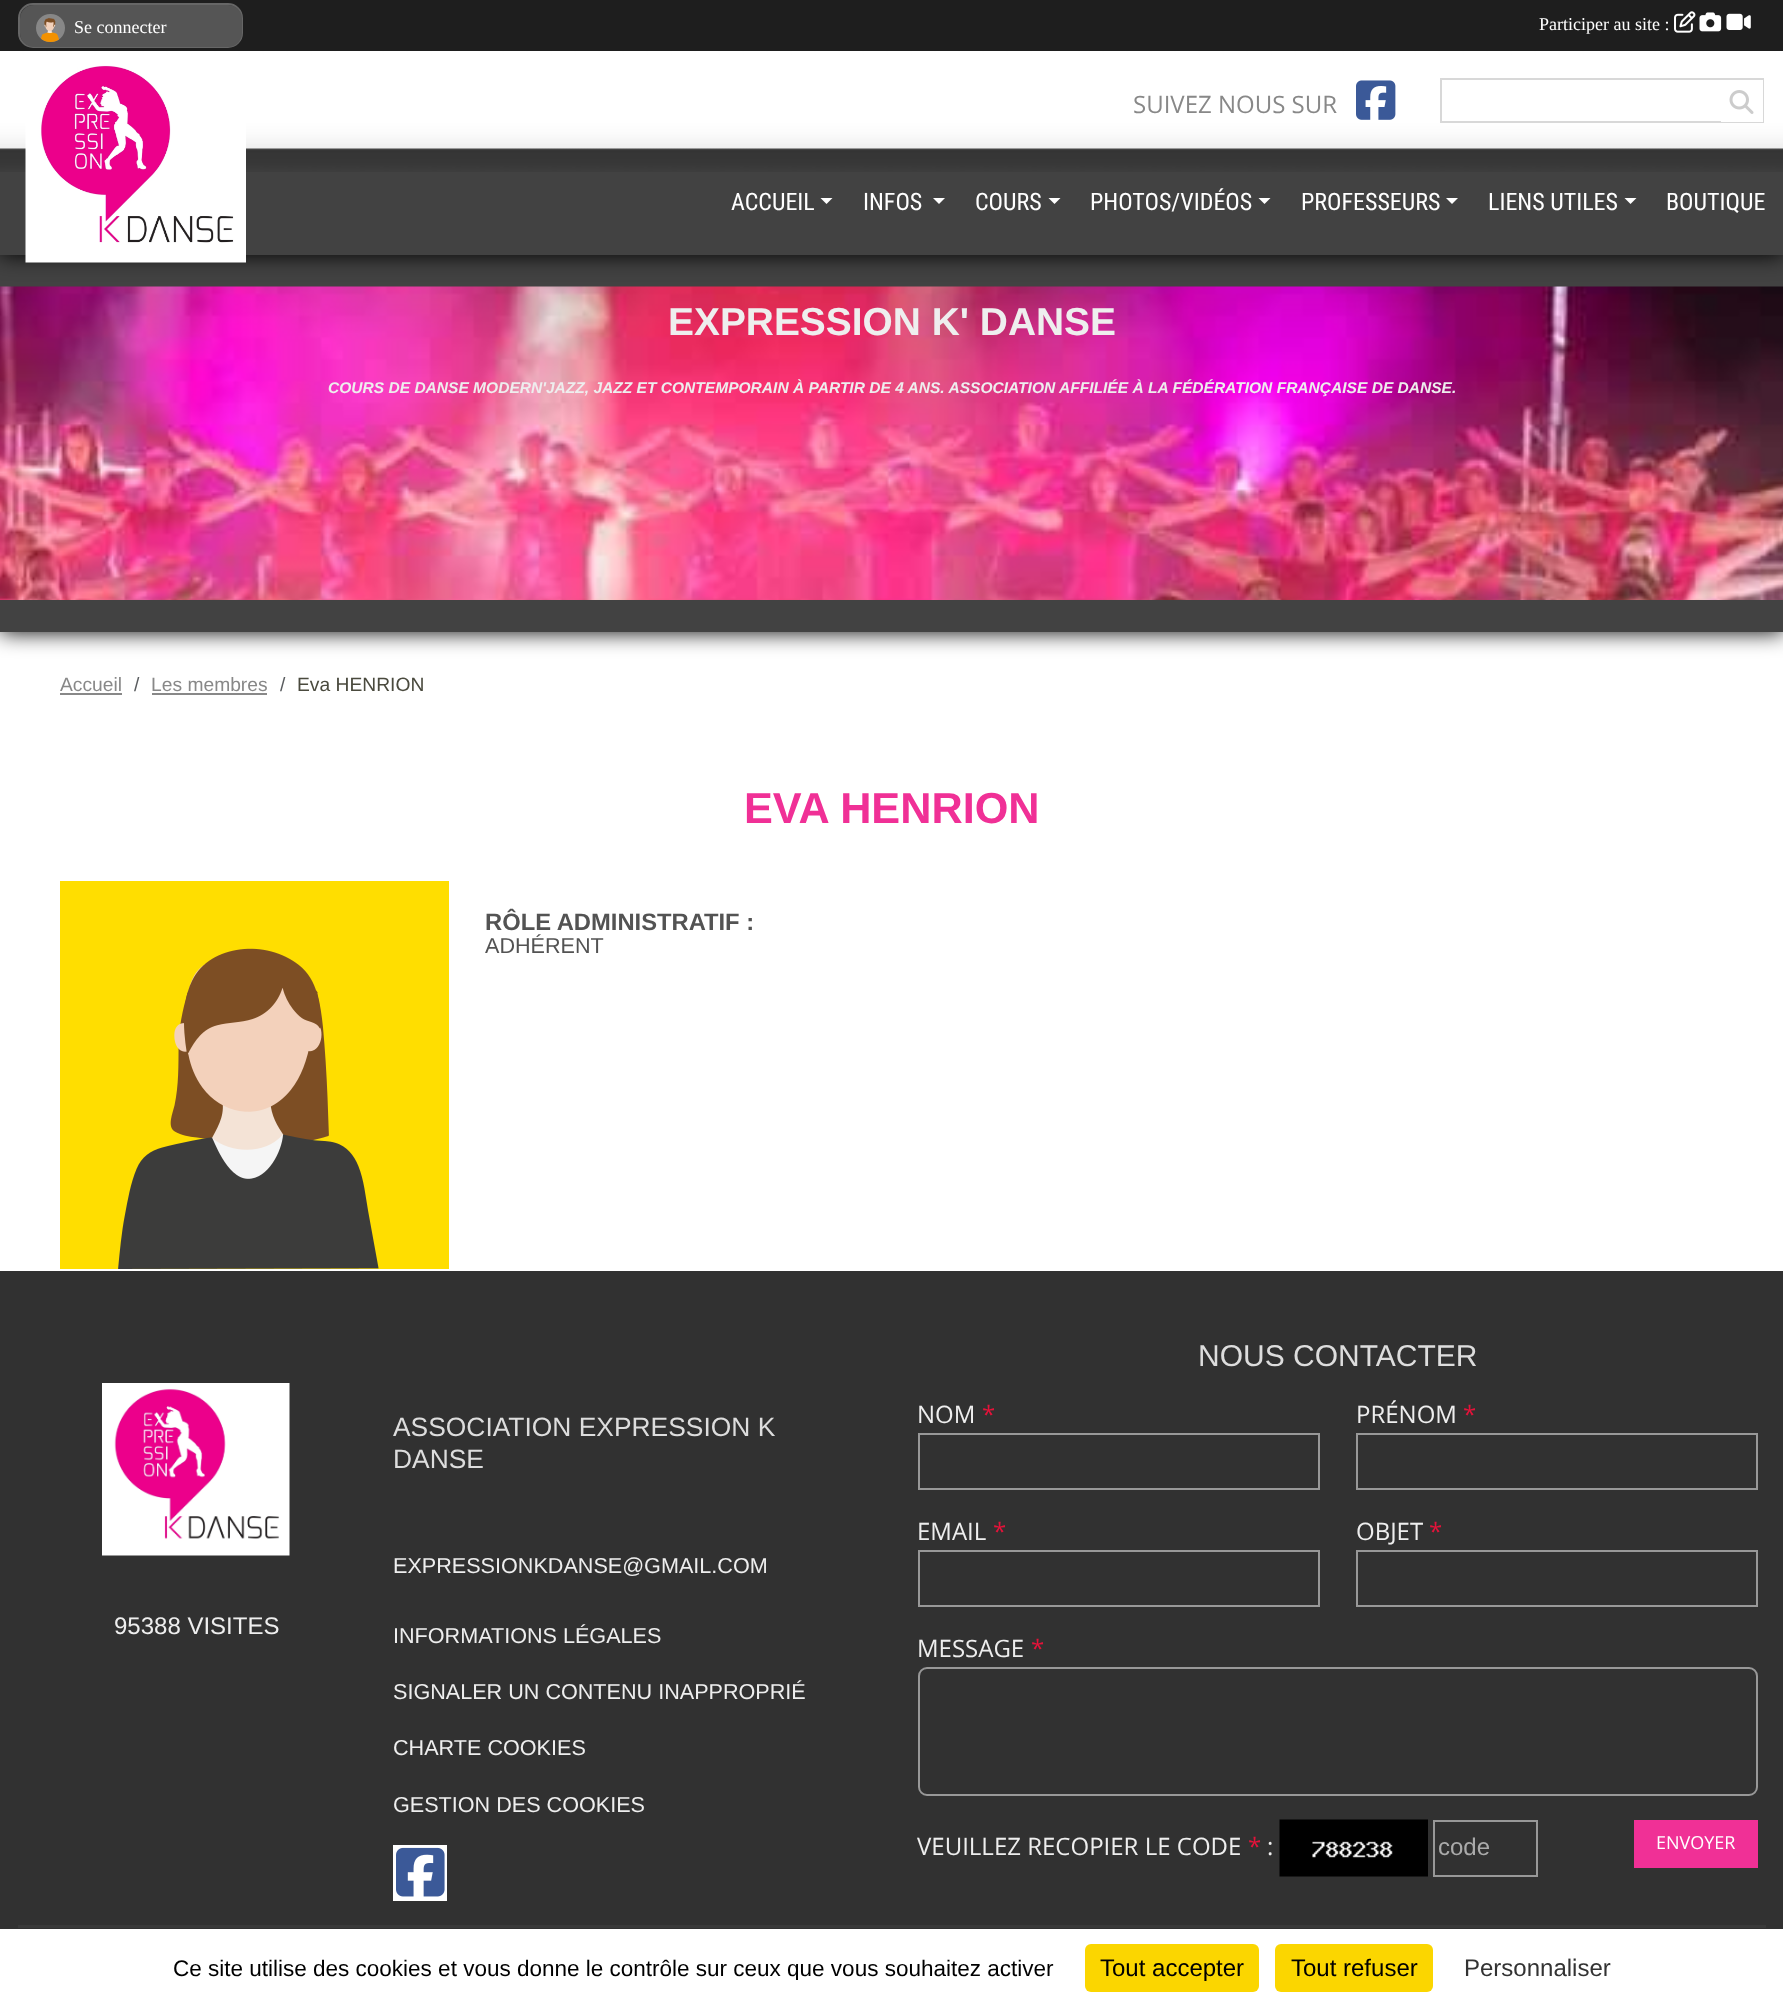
<svg xmlns="http://www.w3.org/2000/svg" width="1783" height="2006" viewBox="0 0 1783 2006">
  <style>
    .t1 { font: 18px Liberation Serif; fill: #fff; }
    .t2 { font: 24px Open Sans; fill: #888; }
    .t3 { font: 24px Roboto Condensed; fill: #fff; }
    .t4 { font: bold 38.9px Liberation Sans; fill: #eee; }
    .t5 { font: italic bold 15.55px Liberation Sans; fill: #eee; }
    .t6 { font: 19.25px Liberation Sans; fill: #888; }
    .t7 { font: 19.25px Liberation Sans; fill: #595c5f; }
    .t8 { font: 19.25px Liberation Sans; fill: #4a4a3e; }
    .t9 { font: bold 43.25px Liberation Sans; fill: #f03096; }
    .t10 { font: bold 23.75px Liberation Sans; fill: #535353; }
    .t11 { font: 21.6px Liberation Sans; fill: #535353; }
    .t12 { font: 24px Liberation Sans; fill: #eee; }
    .t13 { font: 26.4px Liberation Sans; fill: #ddd; }
    .t14 { font: 21.6px Liberation Sans; fill: #eee; }
    .t15 { font: 30px Liberation Sans; fill: #ddd; }
    .t16 { font: 24px Open Sans; fill: #eee; }
    .t17 { font: 24px Open Sans; fill: #e4133a; }
    .t18 { font: 24px Liberation Sans; fill: #aaa; }
    .t19 { font: 18px Open Sans; fill: #fff; }
    .t20 { font: 22.5px Liberation Sans; fill: #000; }
    .t21 { font: 24px Liberation Sans; fill: #000; }
    .t22 { font: 24px Liberation Sans; fill: #333; }
  </style>
  <defs>
    <clipPath id="clip1"><rect x="158" y="1955" width="910" height="25"/></clipPath>
  </defs>
  <rect width="100%" height="100%" fill="#313131"/>
  <rect x="0" y="632" width="1783" height="639" fill="#fff"/>
  <rect x="0" y="255" width="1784" height="377" fill="#000" filter="blur(11px)"/>
  <rect x="0" y="255" width="1783" height="377" fill="#424242"/>
  <image x="0" y="286" width="1783" height="314" href="images/9.png"/>
  <rect x="0" y="51" width="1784" height="204" fill="#000" filter="blur(11px)"/>
  <rect x="0" y="0" width="1783" height="51" fill="#1e1e1e"/>
  <rect x="19" y="4" width="223" height="43" rx="14" fill="#333" stroke="#666" stroke-width="2"/>
  <rect x="20" y="5" width="222" height="42" rx="14" fill="#555"/>
  <image x="36" y="14" width="29" height="28" href="images/1.png"/>
  <text x="74" y="33" class="t1">Se connecter</text>
  <text x="1539" y="30" class="t1">Participer au site :</text>
  <image x="1674" y="11" width="22" height="22" href="images/2.png"/>
  <image x="1699" y="12" width="23" height="20" href="images/3.png"/>
  <image x="1726" y="13" width="25" height="17" href="images/4.png"/>
  <rect x="0" y="148" width="1783" height="107" fill="#424242"/>
  <image x="0" y="51" width="1783" height="121" href="images/5.png"/>
  <image x="25" y="65" width="221" height="198" href="images/6.png"/>
  <text x="1133" y="113" class="t2">SUIVEZ NOUS SUR</text>
  <image x="1356" y="80" width="40" height="40" href="images/7.png"/>
  <rect x="1441" y="79" width="322" height="43" fill="none" stroke="#d8d8d8" stroke-width="2"/>
  <rect x="1721" y="80" width="42" height="42" fill="#fff"/>
  <image x="1729" y="90" width="25" height="24" href="images/8.png"/>
  <text x="731" y="210" class="t3">ACCUEIL</text>
  <path d="M820.5 198H832.5L826.5 204Z" fill="#fff"/>
  <text x="863" y="210" class="t3">INFOS</text>
  <path d="M933 198H945L939 204Z" fill="#fff"/>
  <text x="975" y="210" class="t3">COURS</text>
  <path d="M1048.5 198H1060.5L1054.5 204Z" fill="#fff"/>
  <text x="1090" y="210" class="t3">PHOTOS/VIDÉOS</text>
  <path d="M1258.5 198H1270.5L1264.5 204Z" fill="#fff"/>
  <text x="1301" y="210" class="t3">PROFESSEURS</text>
  <path d="M1446 198H1458L1452 204Z" fill="#fff"/>
  <text x="1488" y="210" class="t3">LIENS UTILES</text>
  <path d="M1624.5 198H1636.5L1630.5 204Z" fill="#fff"/>
  <text x="1666" y="210" class="t3">BOUTIQUE</text>
  <text x="668" y="335" class="t4">EXPRESSION K' DANSE</text>
  <text x="328" y="393" class="t5">COURS DE DANSE MODERN'JAZZ, JAZZ ET CONTEMPORAIN À PARTIR DE 4 ANS. ASSOCIATION AFFILIÉE À LA FÉDÉRATION FRANÇAISE DE DANSE.</text>
  <text x="60" y="691" class="t6">Accueil</text>
  <rect x="60" y="693" width="62" height="2" fill="#888"/>
  <text x="134" y="691" class="t7">/</text>
  <text x="151" y="691" class="t6">Les membres</text>
  <rect x="152" y="693" width="115" height="2" fill="#888"/>
  <text x="280" y="691" class="t7">/</text>
  <text x="297" y="691" class="t8">Eva HENRION</text>
  <text x="744" y="823" class="t9">EVA HENRION</text>
  <image x="60" y="881" width="389" height="388" href="images/10.png"/>
  <text x="485" y="930" class="t10">RÔLE ADMINISTRATIF :</text>
  <text x="485" y="953" class="t11">ADHÉRENT</text>
  <image x="102" y="1383" width="188" height="173" href="images/11.png"/>
  <text x="114" y="1634" class="t12">95388 VISITES</text>
  <text x="393" y="1436" class="t13">ASSOCIATION EXPRESSION K</text>
  <text x="393" y="1468" class="t13">DANSE</text>
  <text x="393" y="1573" class="t14">EXPRESSIONKDANSE@GMAIL.COM</text>
  <text x="393" y="1643" class="t14">INFORMATIONS LÉGALES</text>
  <text x="393" y="1699" class="t14">SIGNALER UN CONTENU INAPPROPRIÉ</text>
  <text x="393" y="1755" class="t14">CHARTE COOKIES</text>
  <text x="393" y="1812" class="t14">GESTION DES COOKIES</text>
  <rect x="393" y="1845" width="54" height="56" fill="#fff"/>
  <image x="396" y="1847" width="49" height="50" href="images/12.png"/>
  <text x="1198" y="1366" class="t15">NOUS CONTACTER</text>
  <text x="917" y="1423" class="t16">NOM</text>
  <text x="982" y="1423" class="t17">*</text>
  <rect x="919" y="1434" width="400" height="55" fill="none" stroke="#989898" stroke-width="2"/>
  <text x="917" y="1540" class="t16">EMAIL</text>
  <text x="993" y="1540" class="t17">*</text>
  <rect x="919" y="1551" width="400" height="55" fill="none" stroke="#989898" stroke-width="2"/>
  <text x="1356" y="1423" class="t16">PRÉNOM</text>
  <text x="1463" y="1423" class="t17">*</text>
  <rect x="1357" y="1434" width="400" height="55" fill="none" stroke="#989898" stroke-width="2"/>
  <text x="1356" y="1540" class="t16">OBJET</text>
  <text x="1429" y="1540" class="t17">*</text>
  <rect x="1357" y="1551" width="400" height="55" fill="none" stroke="#989898" stroke-width="2"/>
  <text x="917" y="1657" class="t16">MESSAGE</text>
  <text x="1031" y="1657" class="t17">*</text>
  <rect x="919" y="1668" width="838" height="127" rx="8" fill="none" stroke="#989898" stroke-width="2"/>
  <text x="917" y="1855" class="t16">VEUILLEZ RECOPIER LE CODE</text>
  <text x="1248" y="1855" class="t17">*</text>
  <text x="1267" y="1855" class="t16">:</text>
  <image x="1279" y="1819" width="149" height="58" href="images/13.png"/>
  <rect x="1434" y="1821" width="103" height="55" fill="none" stroke="#989898" stroke-width="2"/>
  <text x="1438" y="1855" class="t18">code</text>
  <rect x="1634" y="1820" width="124" height="48" fill="#f03096"/>
  <text x="1656" y="1849" class="t19">ENVOYER</text>
  <rect x="18" y="1925" width="1748" height="3" fill="#393939"/>
  <rect x="0" y="1929" width="1783" height="77" fill="#fff"/>
  <g clip-path="url(#clip1)">
    <text x="173" y="1976" class="t20">Ce site utilise des cookies et vous donne le contrôle sur ceux que vous souhaitez activer</text>
  </g>
  <rect x="1085" y="1944" width="174" height="48" rx="6" fill="#fbd600"/>
  <text x="1100" y="1976" class="t21">Tout accepter</text>
  <rect x="1275" y="1944" width="158" height="48" rx="6" fill="#fbd600"/>
  <text x="1291" y="1976" class="t21">Tout refuser</text>
  <text x="1464" y="1976" class="t22">Personnaliser</text>
</svg>
